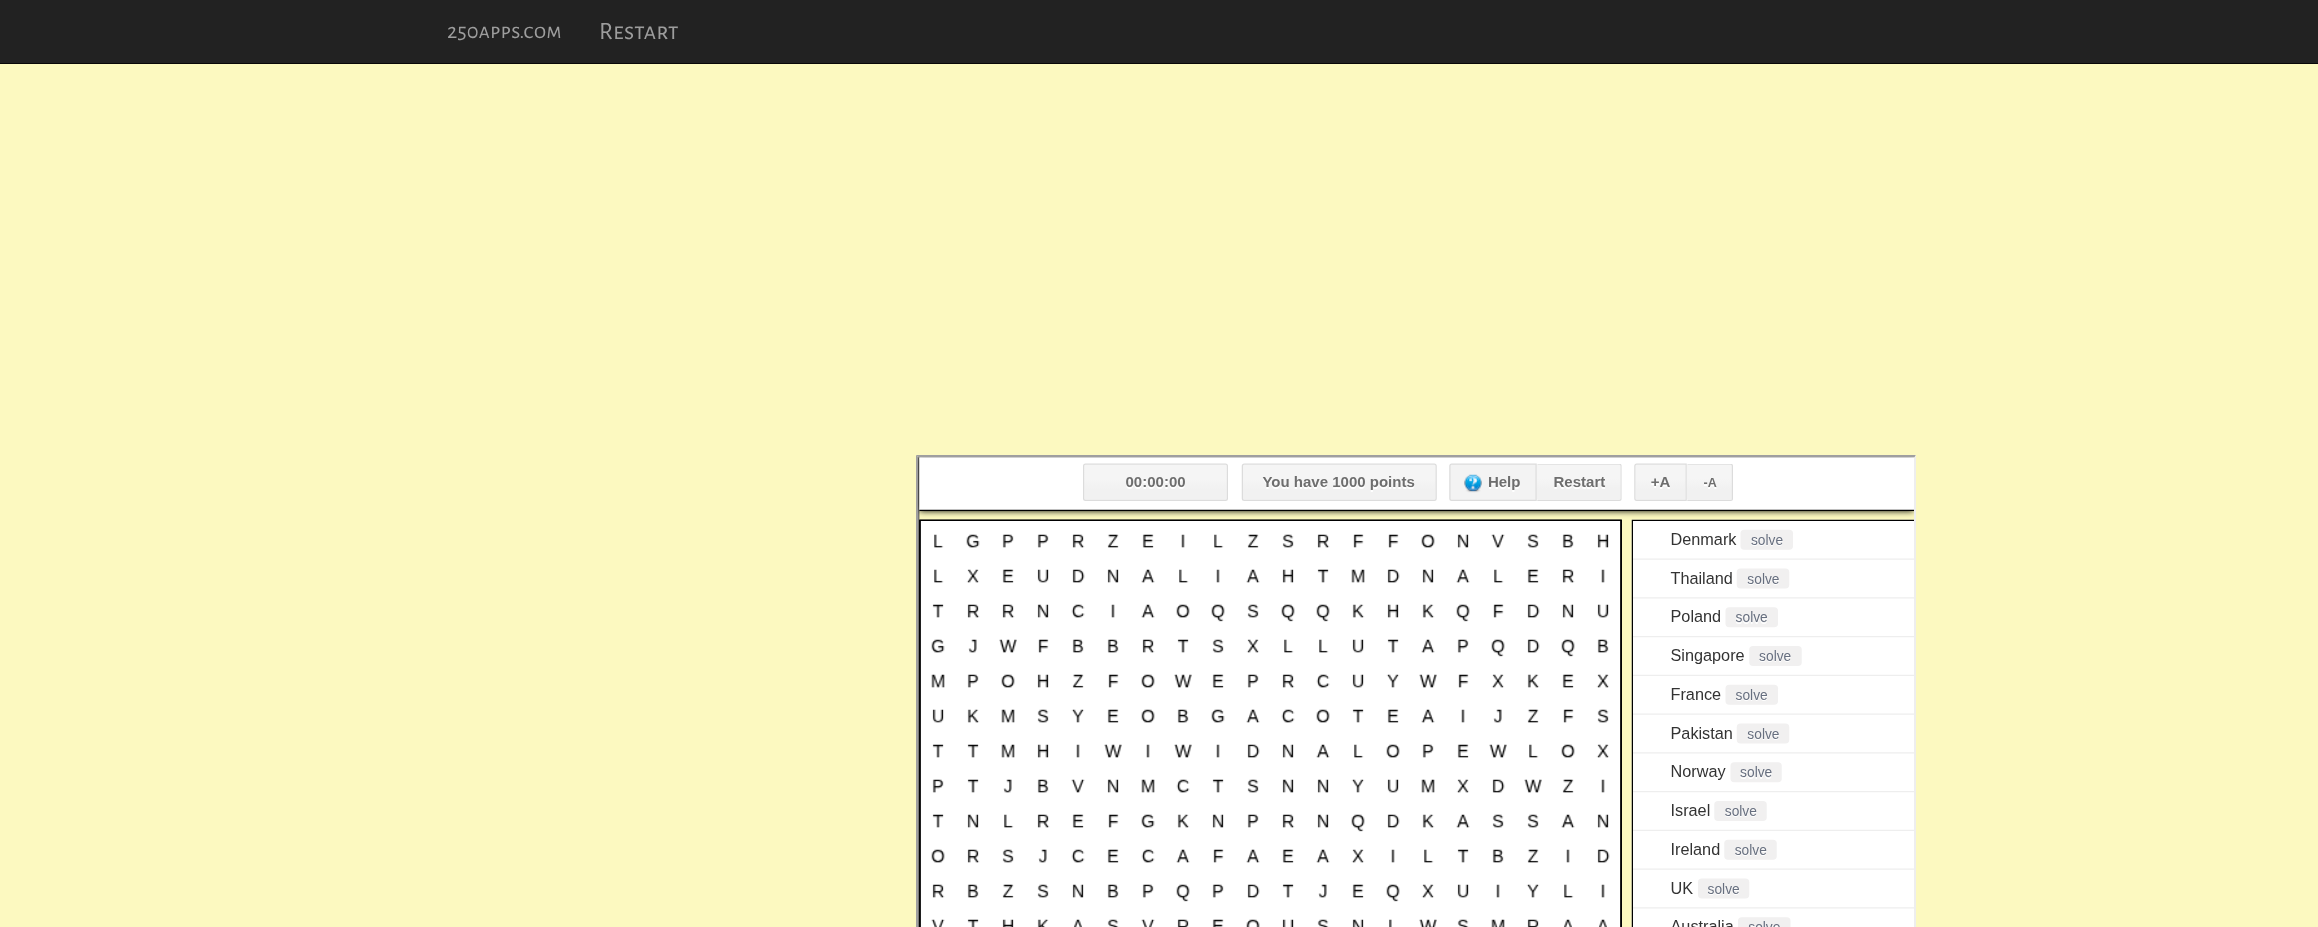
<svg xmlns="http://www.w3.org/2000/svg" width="2318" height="927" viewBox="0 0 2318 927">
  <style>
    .t1 { font: 22.5px Alegreya Sans SC; fill: #9d9d9d; }
    .t2 { font: 25px Alegreya Sans SC; fill: #9d9d9d; }
  </style>
  <rect width="100%" height="100%" fill="#fcf9c0"/>
  <rect x="0" y="0" width="2318" height="63" fill="#222"/>
  <rect x="0" y="63" width="2318" height="1" fill="#080808"/>
  <text x="447" y="38" class="t1">250apps.com</text>
  <text x="599" y="39" class="t2">Restart</text>
  <path d="M916 455H1916L1914 458H919Z" fill="#9f9f9f"/>
  <path d="M916 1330V455L919 458V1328Z" fill="#9f9f9f"/>
  <image x="918" y="457" width="996" height="470" href="images/1.png"/>
  <path d="M1916 455V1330L1914 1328V458Z" fill="#eee"/>
</svg>
